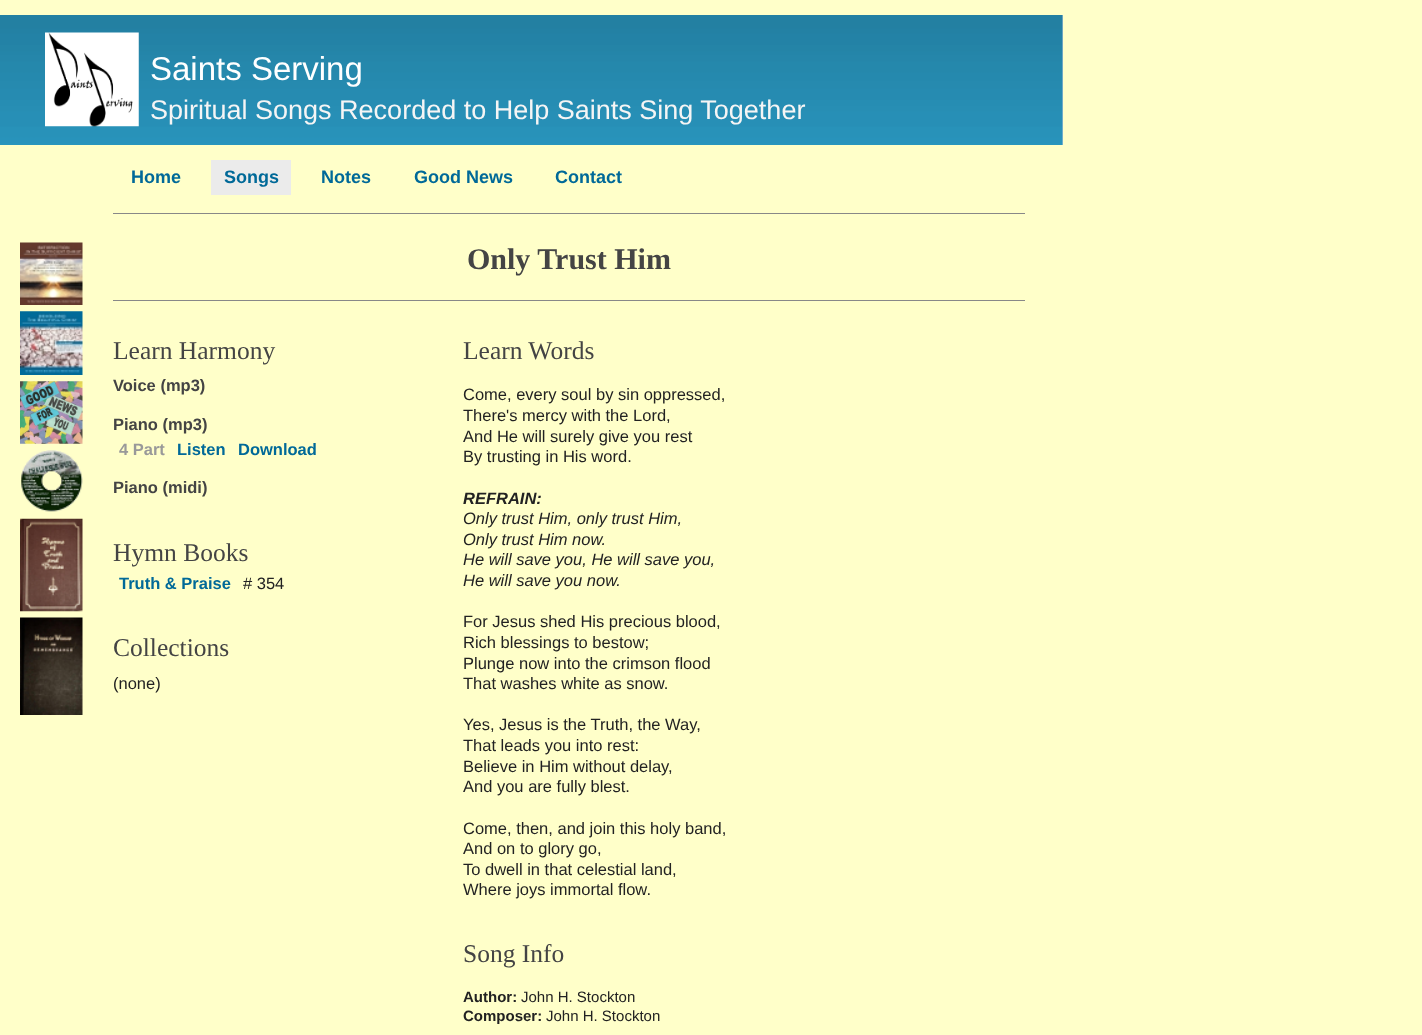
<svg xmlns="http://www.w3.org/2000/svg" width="1422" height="1035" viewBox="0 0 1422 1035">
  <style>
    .t1 { font: 33px Liberation Sans; fill: #fff; }
    .t2 { font: 27px Liberation Sans; fill: #f5f5f5; }
    .t3 { font: bold 18px Liberation Sans; fill: #006998; }
    .t4 { font: bold 30px Liberation Serif; fill: #444; }
    .t5 { font: 25.5px Liberation Serif; fill: #444; }
    .t6 { font: bold 16.5px Liberation Sans; fill: #444; }
    .t7 { font: bold 16.5px Liberation Sans; fill: #999; }
    .t8 { font: bold 16.5px Liberation Sans; fill: #006998; }
    .t9 { font: 16.5px Liberation Sans; fill: #222; }
    .t10 { font: italic bold 16.5px Liberation Sans; fill: #222; }
    .t11 { font: italic 16.5px Liberation Sans; fill: #222; }
    .t12 { font: bold 15px Liberation Sans; fill: #222; }
    .t13 { font: 15px Liberation Sans; fill: #222; }
  </style>
  <rect width="100%" height="100%" fill="#ffffc9"/>
  <rect x="1062" y="15" width="1" height="130" fill="#bac8da"/>
  <image x="0" y="15" width="1063" height="130" href="images/1.png"/>
  <image x="45" y="32" width="94" height="95" href="images/2.png"/>
  <text x="150" y="80" class="t1">Saints Serving</text>
  <text x="150" y="119" class="t2">Spiritual Songs Recorded to Help Saints Sing Together</text>
  <image x="20" y="242" width="63" height="63" href="images/3.png"/>
  <image x="20" y="311" width="63" height="64" href="images/4.png"/>
  <image x="20" y="381" width="63" height="63" href="images/5.png"/>
  <image x="21" y="450" width="62" height="62" href="images/6.png"/>
  <image x="20" y="518" width="63" height="94" href="images/7.png"/>
  <image x="20" y="617" width="63" height="98" href="images/8.png"/>
  <rect x="113" y="213" width="912" height="1" fill="#888"/>
  <text x="131" y="183" class="t3">Home</text>
  <rect x="211" y="160" width="80" height="35" fill="#ebebeb"/>
  <text x="224" y="183" class="t3">Songs</text>
  <text x="321" y="183" class="t3">Notes</text>
  <text x="414" y="183" class="t3">Good News</text>
  <text x="555" y="183" class="t3">Contact</text>
  <text x="467" y="269" class="t4">Only Trust Him</text>
  <rect x="113" y="300" width="912" height="1" fill="#888"/>
  <text x="113" y="359" class="t5">Learn Harmony</text>
  <text x="113" y="391" class="t6">Voice (mp3)</text>
  <text x="113" y="430" class="t6">Piano (mp3)</text>
  <text x="119" y="455" class="t7">4 Part</text>
  <text x="177" y="455" class="t8">Listen</text>
  <text x="238" y="455" class="t8">Download</text>
  <text x="113" y="493" class="t6">Piano (midi)</text>
  <text x="113" y="561" class="t5">Hymn Books</text>
  <text x="119" y="589" class="t8">Truth &amp; Praise</text>
  <text x="243" y="589" class="t9"># 354</text>
  <text x="113" y="656" class="t5">Collections</text>
  <text x="113" y="689" class="t9">(none)</text>
  <text x="463" y="359" class="t5">Learn Words</text>
  <text x="463" y="400" class="t9">Come, every soul by sin oppressed,</text>
  <text x="463" y="421" class="t9">There's mercy with the Lord,</text>
  <text x="463" y="442" class="t9">And He will surely give you rest</text>
  <text x="463" y="462" class="t9">By trusting in His word.</text>
  <text x="463" y="504" class="t10">REFRAIN:</text>
  <text x="463" y="524" class="t11">Only trust Him, only trust Him,</text>
  <text x="463" y="545" class="t11">Only trust Him now.</text>
  <text x="463" y="565" class="t11">He will save you, He will save you,</text>
  <text x="463" y="586" class="t11">He will save you now.</text>
  <text x="463" y="627" class="t9">For Jesus shed His precious blood,</text>
  <text x="463" y="648" class="t9">Rich blessings to bestow;</text>
  <text x="463" y="669" class="t9">Plunge now into the crimson flood</text>
  <text x="463" y="689" class="t9">That washes white as snow.</text>
  <text x="463" y="730" class="t9">Yes, Jesus is the Truth, the Way,</text>
  <text x="463" y="751" class="t9">That leads you into rest:</text>
  <text x="463" y="772" class="t9">Believe in Him without delay,</text>
  <text x="463" y="792" class="t9">And you are fully blest.</text>
  <text x="463" y="834" class="t9">Come, then, and join this holy band,</text>
  <text x="463" y="854" class="t9">And on to glory go,</text>
  <text x="463" y="875" class="t9">To dwell in that celestial land,</text>
  <text x="463" y="895" class="t9">Where joys immortal flow.</text>
  <text x="463" y="962" class="t5">Song Info</text>
  <text x="463" y="1002" class="t12">Author:</text>
  <text x="521" y="1002" class="t13">John H. Stockton</text>
  <text x="463" y="1021" class="t12">Composer:</text>
  <text x="546" y="1021" class="t13">John H. Stockton</text>
</svg>
